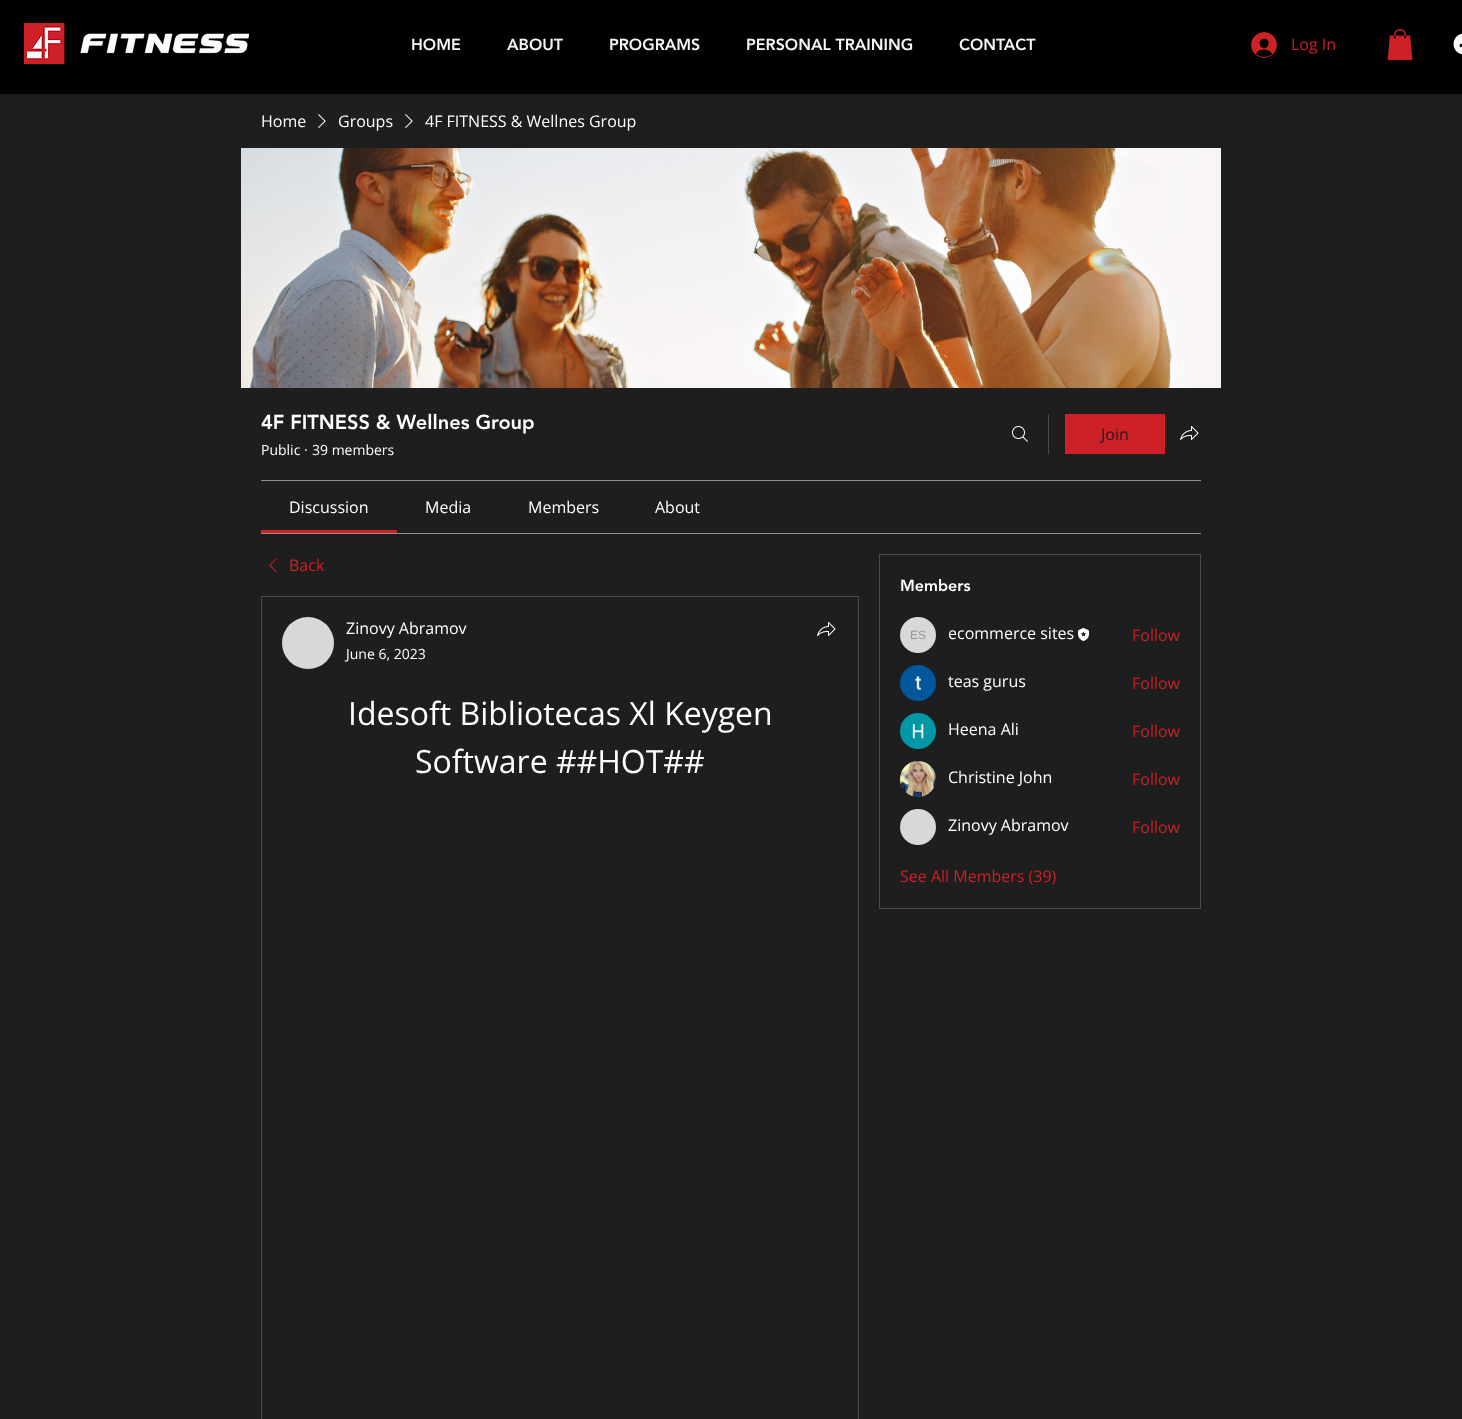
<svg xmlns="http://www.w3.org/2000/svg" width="1462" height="1419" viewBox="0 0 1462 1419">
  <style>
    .t1 { font: 900 16px 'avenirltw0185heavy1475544'; fill: #f5f5f5; }
    .t2 { font: 16px Open Sans; fill: #cd2027; }
    .t3 { font: 16px Open Sans; fill: #fff; }
    .t4 { font: 900 20px 'avenirltw0185heavy1475544'; fill: #fff; }
    .t5 { font: 14px Open Sans; fill: #fff; }
    .t6 { font: 16px Open Sans; fill: #1e1e1e; }
    .t7 { font: 32px Open Sans; fill: #fff; }
    .t8 { font: 900 16px 'avenirltw0185heavy1475544'; fill: #fff; }
    .t9 { font: 12px Liberation Sans; fill: #979797; }
  </style>
  <rect width="100%" height="100%" fill="#1e1e1e"/>
  <rect x="0" y="0" width="1462" height="94" fill="#000"/>
  <image x="24" y="23" width="225" height="41" href="images/1.png"/>
  <text x="411" y="50" class="t1">HOME</text>
  <text x="507" y="50" class="t1">ABOUT</text>
  <text x="609" y="50" class="t1">PROGRAMS</text>
  <text x="746" y="50" class="t1">PERSONAL TRAINING</text>
  <text x="959" y="50" class="t1">CONTACT</text>
  <image x="1251" y="32" width="26" height="26" href="images/2.png"/>
  <text x="1291" y="50" class="t2">Log In</text>
  <image x="1387" y="29" width="26" height="32" href="images/3.png"/>
  <image x="1453" y="33" width="9" height="22" href="images/4.png"/>
  <text x="261" y="127" class="t3">Home</text>
  <image x="318" y="114" width="8" height="14" href="images/5.png"/>
  <text x="338" y="127" class="t3">Groups</text>
  <image x="405" y="114" width="8" height="14" href="images/5.png"/>
  <text x="425" y="127" class="t3">4F FITNESS &amp; Wellnes Group</text>
  <image x="241" y="148" width="980" height="240" href="images/6.png"/>
  <text x="261" y="429" class="t4">4F FITNESS &amp; Wellnes Group</text>
  <text x="261" y="455" class="t5">Public</text>
  <text x="304" y="455" class="t5">·</text>
  <text x="312" y="455" class="t5">39 members</text>
  <image x="1012" y="426" width="16" height="16" href="images/7.png"/>
  <rect x="1048" y="414" width="1" height="40" fill="#4b4b4b"/>
  <rect x="1065" y="414" width="100" height="40" fill="#cd2027"/>
  <text x="1101" y="440" class="t6">Join</text>
  <image x="1180" y="426" width="19" height="14" href="images/8.png"/>
  <rect x="261" y="480" width="940" height="1" fill="#8f8f8f"/>
  <rect x="261" y="533" width="940" height="1" fill="#8f8f8f"/>
  <rect x="261" y="530" width="136" height="3" fill="#cd2027"/>
  <text x="289" y="513" class="t3">Discussion</text>
  <text x="425" y="513" class="t3">Media</text>
  <text x="528" y="513" class="t3">Members</text>
  <text x="655" y="513" class="t3">About</text>
  <image x="269" y="558" width="8" height="14" href="images/9.png"/>
  <text x="289" y="571" class="t2">Back</text>
  <rect x="261.5" y="596.5" width="597" height="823" fill="none" stroke="#4b4b4b"/>
  <circle cx="308" cy="643" r="26" fill="#d8d8d8"/>
  <text x="346" y="634" class="t3">Zinovy Abramov</text>
  <text x="346" y="659" class="t5">June 6, 2023</text>
  <image x="817" y="622" width="19" height="14" href="images/8.png"/>
  <text x="348" y="725" class="t7">Idesoft Bibliotecas Xl Keygen</text>
  <text x="415" y="773" class="t7">Software ##HOT##</text>
  <rect x="879.5" y="554.5" width="321" height="354" fill="none" stroke="#4b4b4b"/>
  <text x="900" y="591" class="t8">Members</text>
  <circle cx="918" cy="635" r="18" fill="#d8d8d8"/>
  <text x="910" y="639" class="t9">ES</text>
  <text x="948" y="639" class="t3">ecommerce sites</text>
  <image x="1078" y="628" width="11" height="13" href="images/10.png"/>
  <text x="1132" y="641" class="t2">Follow</text>
  <image x="900" y="665" width="36" height="36" href="images/11.png"/>
  <text x="948" y="687" class="t3">teas gurus</text>
  <text x="1132" y="689" class="t2">Follow</text>
  <image x="900" y="713" width="36" height="36" href="images/12.png"/>
  <text x="948" y="735" class="t3">Heena Ali</text>
  <text x="1132" y="737" class="t2">Follow</text>
  <image x="900" y="761" width="36" height="36" href="images/13.png"/>
  <text x="948" y="783" class="t3">Christine John</text>
  <text x="1132" y="785" class="t2">Follow</text>
  <circle cx="918" cy="827" r="18" fill="#d8d8d8"/>
  <text x="948" y="831" class="t3">Zinovy Abramov</text>
  <text x="1132" y="833" class="t2">Follow</text>
  <text x="900" y="882" class="t2">See All Members (39)</text>
</svg>
